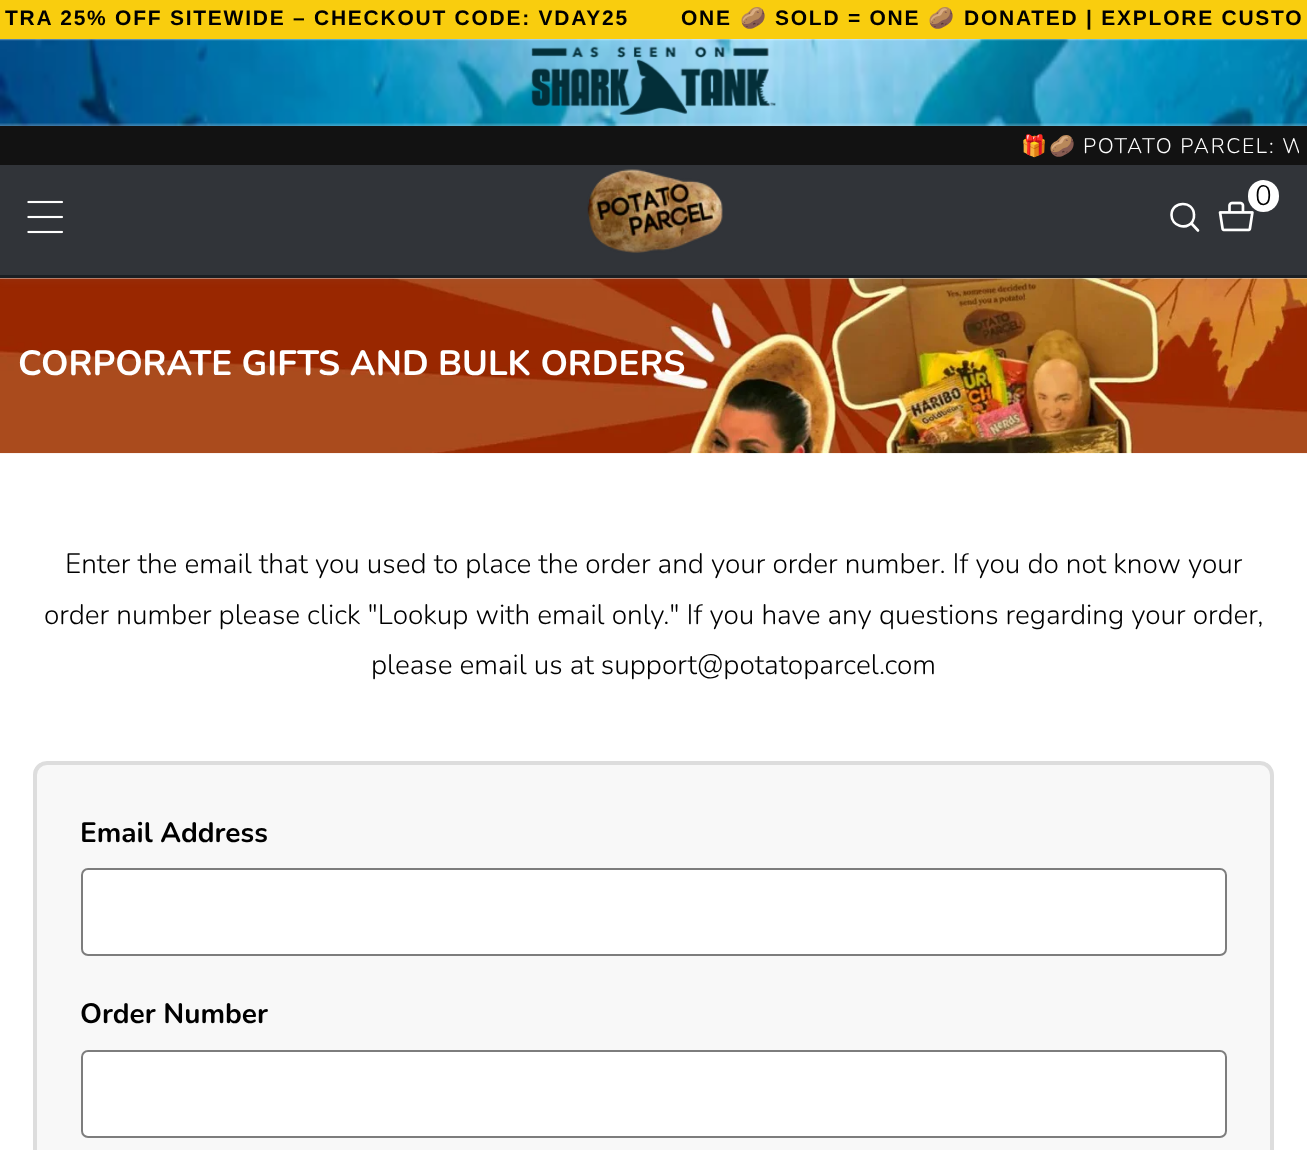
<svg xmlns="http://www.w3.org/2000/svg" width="1307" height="1150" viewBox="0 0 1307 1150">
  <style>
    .t1 { font: bold 21px Liberation Sans; letter-spacing: 1.75px; fill: #000; }
    .t2 { font: bold 21px Noto Color Emoji; letter-spacing: 1.75px; fill: #000; }
    .t3 { font: 21px Noto Color Emoji; letter-spacing: 1.75px; fill: #fff; }
    .t4 { font: 300 21px Nunito; letter-spacing: 1.75px; fill: #fff; }
    .t5 { font: 300 28px Nunito; fill: #000; }
    .t6 { font: bold 35px Nunito; fill: #fff; }
    .t7 { font: bold 28px Nunito; fill: #000; }
  </style>
  <defs>
    <clipPath id="clip1"><rect x="9" y="130" width="1290" height="31"/></clipPath>
  </defs>
  <rect width="100%" height="100%" fill="#fff"/>
  <rect x="0" y="0" width="1307" height="39" fill="#f9cd0e"/>
  <text x="5" y="25" class="t1">TRA 25% OFF SITEWIDE – CHECKOUT CODE: VDAY25</text>
  <text x="681" y="25" class="t1">ONE</text>
  <text x="740" y="25" class="t2">🥔</text>
  <text x="775" y="25" class="t1">SOLD = ONE</text>
  <text x="928" y="25" class="t2">🥔</text>
  <text x="964" y="25" class="t1">DONATED | EXPLORE CUSTO</text>
  <image x="0" y="39" width="1307" height="87" href="images/1.png"/>
  <image x="531" y="46" width="245" height="69" href="images/2.png"/>
  <rect x="0" y="278" width="1307" height="1" fill="#e8e8e8"/>
  <image x="0" y="278" width="1307" height="176" href="images/6.png"/>
  <rect x="0" y="166" width="1307" height="114" fill="#7f8c8d1a" filter="blur(4.5px)"/>
  <rect x="0" y="126" width="1307" height="39" fill="#121212"/>
  <text x="1021" y="153" class="t3">🎁🥔</text>
  <g clip-path="url(#clip1)">
    <text x="1083" y="153" class="t4">POTATO PARCEL: W</text>
  </g>
  <rect x="0" y="275" width="1307" height="3" fill="#1b1f23"/>
  <rect x="0" y="165" width="1307" height="110" fill="#313439"/>
  <image x="587" y="169" width="136" height="84" href="images/3.png"/>
  <image x="1218" y="201" width="36" height="31" href="images/4.png"/>
  <rect x="1248" y="180" width="31" height="32" rx="15.5" fill="#fff"/>
  <text x="1255" y="205" class="t5">0</text>
  <path d="M1191.5 223.5L1198 230.5M1171.5 215C1171.5 226 1186 230.5 1192.5 221.5C1193.5 219.5 1194.5 217.5 1194 215C1194 200 1171.5 200.5 1171.5 215Z" fill="none" stroke="#fff" stroke-width="2.6" stroke-linecap="round" stroke-linejoin="round"/>
  <image x="27" y="200" width="36" height="34" href="images/5.png"/>
  <text x="18" y="375" class="t6">CORPORATE GIFTS AND BULK ORDERS</text>
  <text x="65" y="573" class="t5">Enter the email that you used to place the order and your order number. If you do not know your</text>
  <text x="44" y="624" class="t5">order number please click "Lookup with email only." If you have any questions regarding your order,</text>
  <text x="371" y="674" class="t5">please email us at support@potatoparcel.com</text>
  <rect x="35" y="763" width="1237" height="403" rx="12" fill="#f8f8f8" stroke="#ddd" stroke-width="4"/>
  <text x="80" y="842" class="t7">Email Address</text>
  <rect x="81" y="868" width="1146" height="88" rx="7" fill="#fff"/>
  <rect x="82" y="869" width="1144" height="86" rx="6" fill="none" stroke="#1212128c" stroke-width="2"/>
  <text x="80" y="1023" class="t7">Order Number</text>
  <rect x="81" y="1050" width="1146" height="88" rx="7" fill="#fff"/>
  <rect x="82" y="1051" width="1144" height="86" rx="6" fill="none" stroke="#1212128c" stroke-width="2"/>
</svg>
